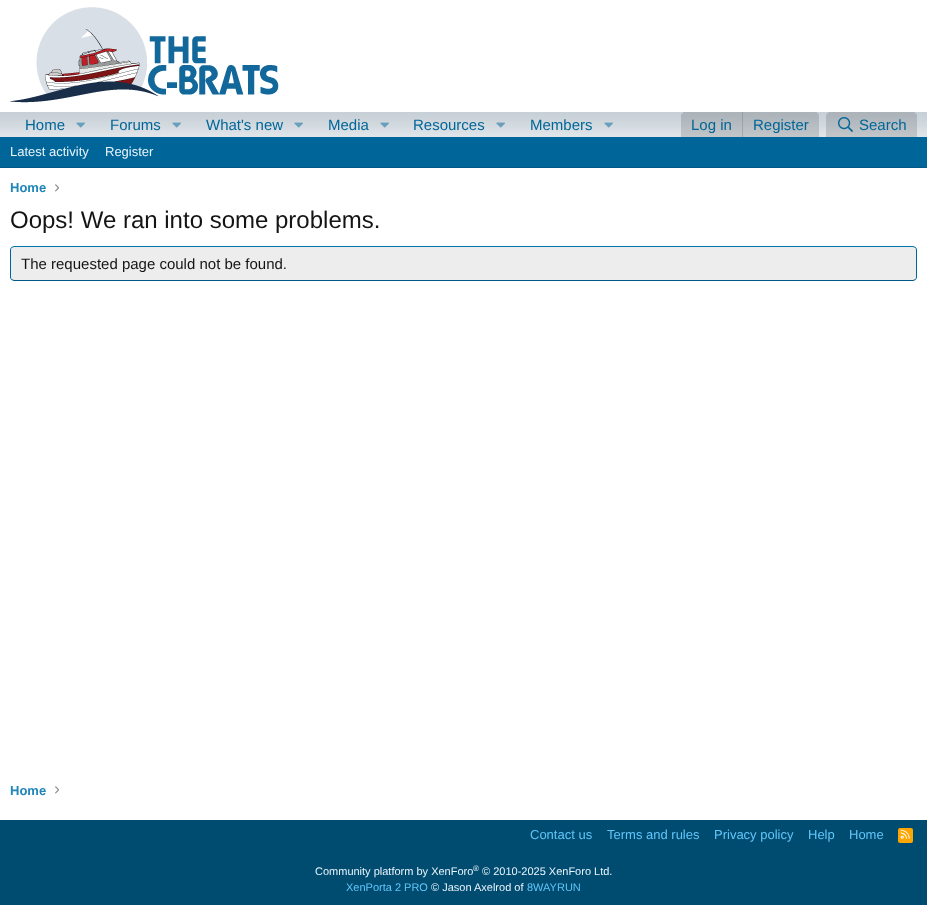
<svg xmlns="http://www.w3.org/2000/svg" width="927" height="905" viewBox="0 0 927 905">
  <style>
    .t1 { font: 15px Liberation Sans; fill: #069; }
    .t2 { font: 13px Liberation Sans; fill: #e8f4fc; }
    .t3 { font: bold 13px Liberation Sans; fill: #2086b9; }
    .t4 { font: 24px Liberation Sans; fill: #141414; }
    .t5 { font: 15px Liberation Sans; fill: #141414; }
    .t6 { font: 13px Liberation Sans; fill: #60c6f9; }
    .t7 { font: 11px Liberation Sans; fill: #e8f4fc; }
    .t8 { font: 8px Liberation Sans; fill: #e8f4fc; }
    .t9 { font: 11px Liberation Sans; fill: #60c6f9; }
  </style>
  <rect width="100%" height="100%" fill="#fff"/>
  <image x="10" y="7" width="269" height="96" href="images/1.png"/>
  <image x="0" y="112" width="927" height="25" href="images/2.png"/>
  <text x="25" y="130" class="t1">Home</text>
  <image x="76" y="122" width="9" height="6" href="images/3.png"/>
  <text x="110" y="130" class="t1">Forums</text>
  <image x="172" y="122" width="9" height="6" href="images/4.png"/>
  <text x="206" y="130" class="t1">What's new</text>
  <image x="294" y="122" width="9" height="6" href="images/5.png"/>
  <text x="328" y="130" class="t1">Media</text>
  <image x="380" y="122" width="9" height="6" href="images/6.png"/>
  <text x="413" y="130" class="t1">Resources</text>
  <image x="496" y="122" width="9" height="6" href="images/4.png"/>
  <text x="530" y="130" class="t1">Members</text>
  <image x="604" y="122" width="9" height="6" href="images/4.png"/>
  <path d="M685 112H815C817 112 819 114 819 116V137H681V116C681 114 683 112 685 112Z" fill="#14141426"/>
  <text x="691" y="130" class="t1">Log in</text>
  <rect x="742" y="112" width="1" height="25" fill="#14141426"/>
  <text x="753" y="130" class="t1">Register</text>
  <path d="M830 112H913C915 112 917 114 917 116V137H826V116C826 114 828 112 830 112Z" fill="#14141426"/>
  <image x="838" y="117" width="15" height="15" href="images/7.png"/>
  <text x="859" y="130" class="t1">Search</text>
  <rect x="0" y="137" width="927" height="30" fill="#069"/>
  <rect x="0" y="167" width="927" height="1" fill="#005885"/>
  <text x="10" y="156" class="t2">Latest activity</text>
  <text x="105" y="156" class="t2">Register</text>
  <text x="10" y="192" class="t3">Home</text>
  <image x="55" y="184" width="4" height="8" href="images/8.png"/>
  <text x="10" y="228" class="t4">Oops! We ran into some problems.</text>
  <rect x="10" y="246" width="907" height="35" rx="4" fill="#ededed"/>
  <path d="M11.5 247.5L14 246.5H913L915.5 247.5" fill="none" stroke="#0074ad"/>
  <path d="M915.5 247.5C916 248 916.5 249 916.5 250V277C916.5 278 916 279 915.5 279.5" fill="none" stroke="#069"/>
  <path d="M915.5 279.5L913 280.5H14L11.5 279.5" fill="none" stroke="#005885"/>
  <path d="M11.5 279.5C11 279 10.5 278 10.5 277V250C10.5 249 11 248 11.5 247.5" fill="none" stroke="#069"/>
  <text x="21" y="269" class="t5">The requested page could not be found.</text>
  <text x="10" y="795" class="t3">Home</text>
  <image x="55" y="786" width="4" height="8" href="images/8.png"/>
  <rect x="0" y="820" width="927" height="85" fill="#004b70"/>
  <text x="530" y="839" class="t6">Contact us</text>
  <text x="607" y="839" class="t6">Terms and rules</text>
  <text x="714" y="839" class="t6">Privacy policy</text>
  <text x="808" y="839" class="t6">Help</text>
  <text x="849" y="839" class="t6">Home</text>
  <rect x="898" y="828" width="15" height="15" rx="2" fill="#ffa500"/>
  <image x="900" y="829" width="10" height="10" href="images/9.png"/>
  <text x="315" y="875" class="t7">Community platform by XenForo</text>
  <text x="473" y="871" class="t8">®</text>
  <text x="482" y="875" class="t7">© 2010-2025 XenForo Ltd.</text>
  <text x="346" y="891" class="t9">XenPorta 2 PRO</text>
  <text x="431" y="891" class="t7">© Jason Axelrod of</text>
  <text x="527" y="891" class="t9">8WAYRUN</text>
</svg>
